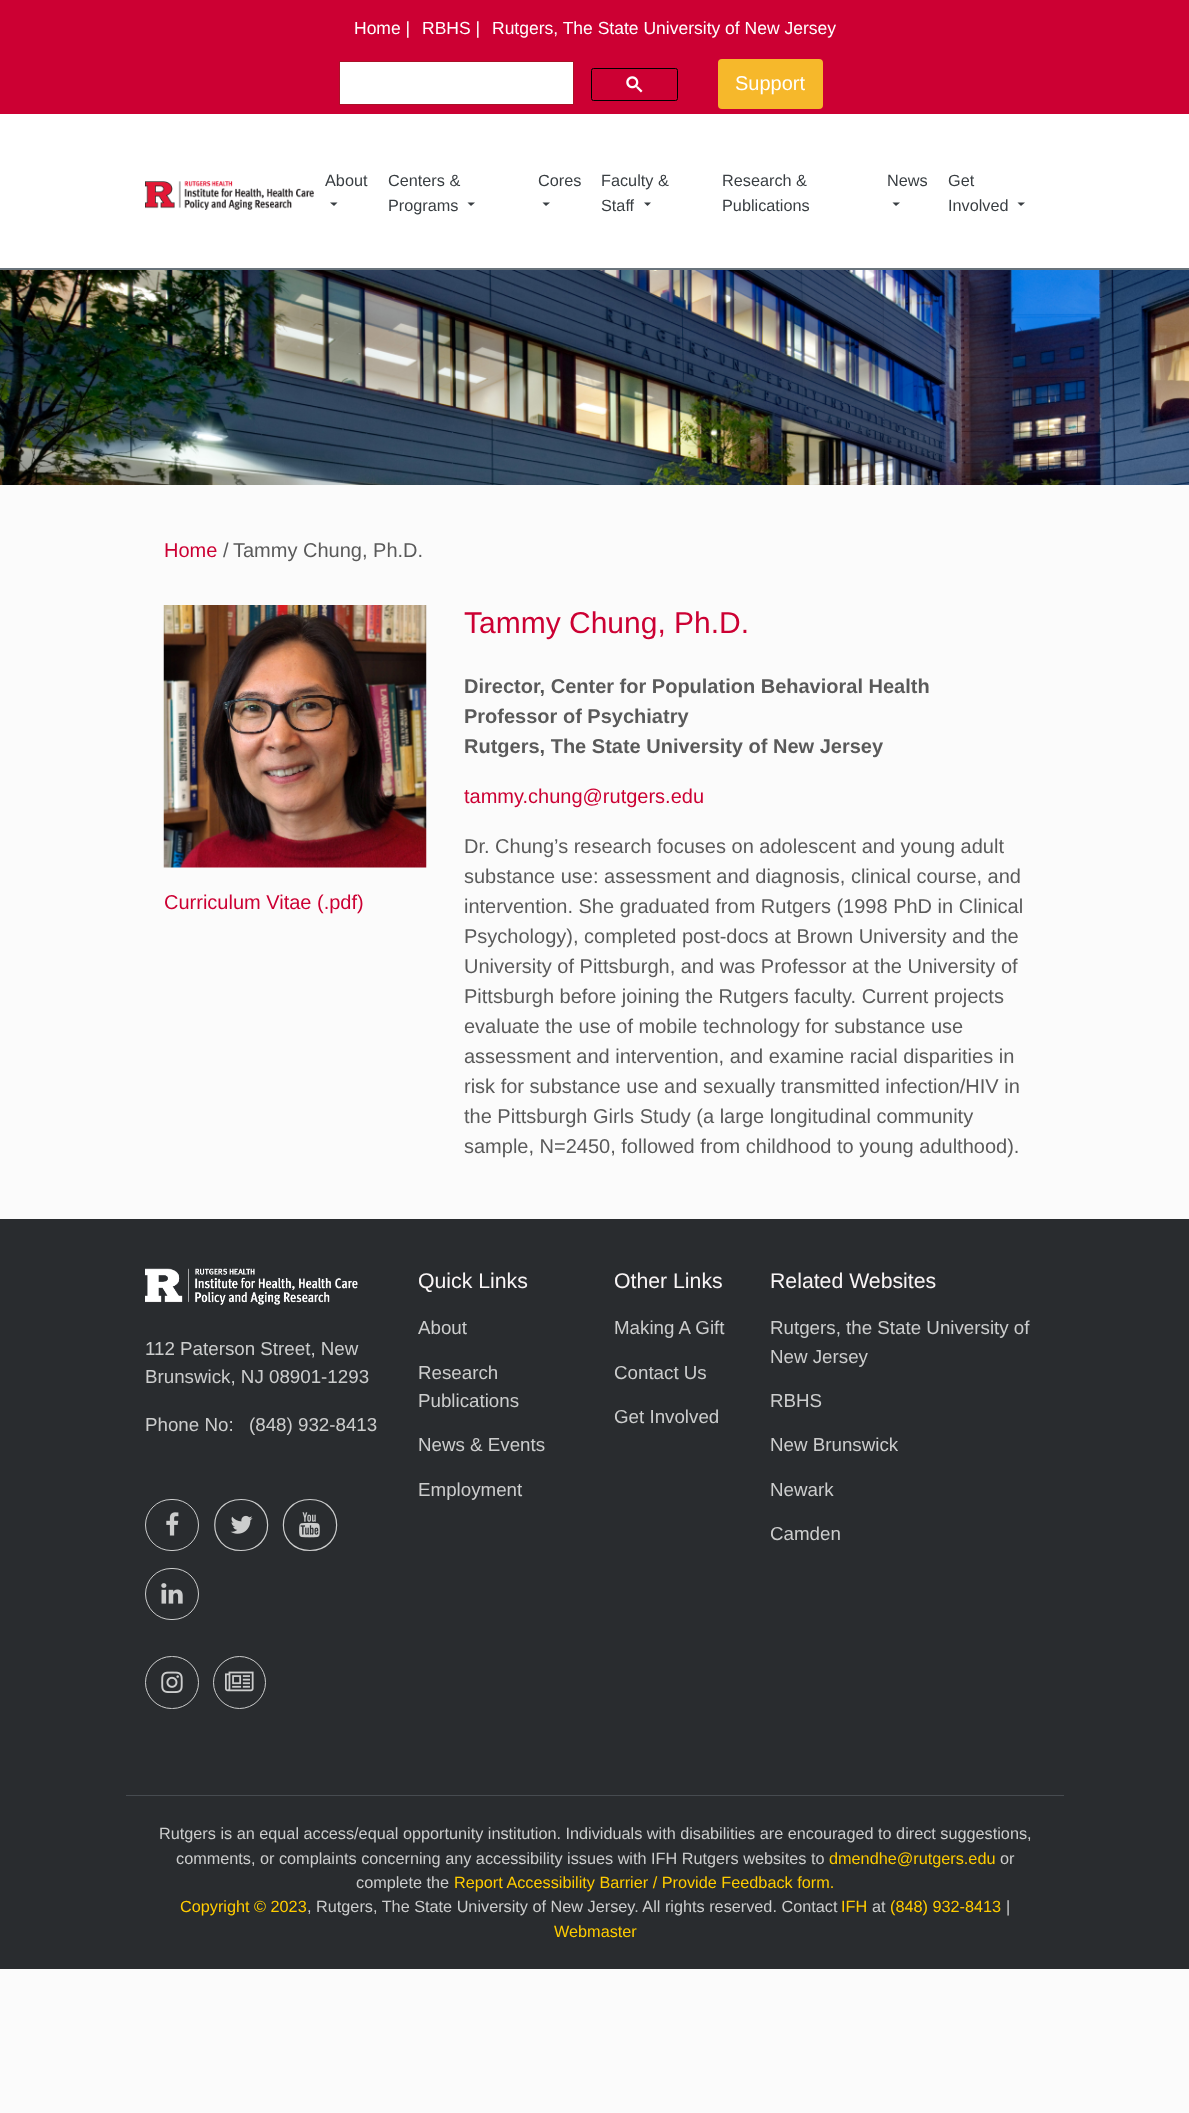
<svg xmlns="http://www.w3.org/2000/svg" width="1189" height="2113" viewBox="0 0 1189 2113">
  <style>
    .t1 { font: 17.5px Liberation Sans; fill: #fff; }
    .t2 { font: 20px Liberation Sans; fill: #fff; }
    .t3 { font: 16.25px Liberation Sans; fill: #393e42; }
    .t4 { font: 20px Liberation Sans; fill: #c03; }
    .t5 { font: 20px Liberation Sans; fill: #5a5a5a; }
    .t6 { font: 30px Liberation Sans; fill: #c03; }
    .t7 { font: bold 20px Liberation Sans; fill: #5a5a5a; }
    .t8 { font: 18.75px Liberation Sans; fill: #cccdcd; }
    .t9 { font: 21.25px Liberation Sans; fill: #f9f5f6; }
    .t10 { font: 16.25px Liberation Sans; fill: #cccdcd; }
    .t11 { font: 16.25px Liberation Sans; fill: #fc0; }
  </style>
  <rect width="100%" height="100%" fill="#fbfbfb"/>
  <rect x="0" y="0" width="1189" height="114" fill="#c03"/>
  <text x="354" y="34" class="t1">Home |</text>
  <text x="422" y="34" class="t1">RBHS |</text>
  <text x="492" y="34" class="t1">Rutgers, The State University of New Jersey</text>
  <rect x="339.5" y="61.5" width="234" height="43" fill="#fff" stroke="#aa1228"/>
  <rect x="591.5" y="68.5" width="86" height="32" rx="2" fill="none" stroke="#000"/>
  <image x="626" y="76" width="17" height="17" href="images/1.png"/>
  <rect x="718" y="59" width="105" height="50" rx="4" fill="#f6b82b"/>
  <text x="735" y="90" class="t2">Support</text>
  <rect x="0" y="114" width="1189" height="154" fill="#fff"/>
  <rect x="0" y="268" width="1189" height="2" fill="#6a747c"/>
  <image x="145" y="181" width="169" height="29" href="images/2.png"/>
  <text x="325" y="186" class="t3">About</text>
  <path d="M330 202.5H337.5L334 206Z" fill="#393e42"/>
  <text x="388" y="186" class="t3">Centers &amp;</text>
  <text x="388" y="211" class="t3">Programs</text>
  <path d="M467.5 202.5H475L471 206Z" fill="#393e42"/>
  <text x="538" y="186" class="t3">Cores</text>
  <path d="M542.5 202.5H550L546 206Z" fill="#393e42"/>
  <text x="601" y="186" class="t3">Faculty &amp;</text>
  <text x="601" y="211" class="t3">Staff</text>
  <path d="M644 202.5H651L647.5 206Z" fill="#393e42"/>
  <text x="722" y="186" class="t3">Research &amp;</text>
  <text x="722" y="211" class="t3">Publications</text>
  <text x="887" y="186" class="t3">News</text>
  <path d="M892.5 202.5H900L896 206Z" fill="#393e42"/>
  <text x="948" y="186" class="t3">Get</text>
  <text x="948" y="211" class="t3">Involved</text>
  <path d="M1017.5 202.5H1025L1021 206Z" fill="#393e42"/>
  <image x="0" y="270" width="1189" height="215" href="images/3.png"/>
  <text x="164" y="557" class="t4">Home</text>
  <text x="223" y="557" class="t5">/</text>
  <text x="233" y="557" class="t5">Tammy Chung, Ph.D.</text>
  <image x="163" y="605" width="264" height="263" href="images/4.png"/>
  <text x="164" y="909" class="t4">Curriculum Vitae (.pdf)</text>
  <text x="464" y="633" class="t6">Tammy Chung, Ph.D.</text>
  <text x="464" y="693" class="t7">Director, Center for Population Behavioral Health</text>
  <text x="464" y="723" class="t7">Professor of Psychiatry</text>
  <text x="464" y="753" class="t7">Rutgers, The State University of New Jersey</text>
  <text x="464" y="803" class="t4">tammy.chung@rutgers.edu</text>
  <text x="464" y="853" class="t5">Dr. Chung’s research focuses on adolescent and young adult</text>
  <text x="464" y="883" class="t5">substance use: assessment and diagnosis, clinical course, and</text>
  <text x="464" y="913" class="t5">intervention. She graduated from Rutgers (1998 PhD in Clinical</text>
  <text x="464" y="943" class="t5">Psychology), completed post-docs at Brown University and the</text>
  <text x="464" y="973" class="t5">University of Pittsburgh, and was Professor at the University of</text>
  <text x="464" y="1003" class="t5">Pittsburgh before joining the Rutgers faculty. Current projects</text>
  <text x="464" y="1033" class="t5">evaluate the use of mobile technology for substance use</text>
  <text x="464" y="1063" class="t5">assessment and intervention, and examine racial disparities in</text>
  <text x="464" y="1093" class="t5">risk for substance use and sexually transmitted infection/HIV in</text>
  <text x="464" y="1123" class="t5">the Pittsburgh Girls Study (a large longitudinal community</text>
  <text x="464" y="1153" class="t5">sample, N=2450, followed from childhood to young adulthood).</text>
  <rect x="0" y="1219" width="1189" height="750" fill="#292c2f"/>
  <rect x="126" y="1795" width="938" height="1" fill="#464b50"/>
  <image x="145" y="1268" width="213" height="37" href="images/5.png"/>
  <text x="145" y="1355" class="t8">112 Paterson Street, New</text>
  <text x="145" y="1383" class="t8">Brunswick, NJ 08901-1293</text>
  <text x="145" y="1431" class="t8">Phone No:</text>
  <text x="249" y="1431" class="t8">(848) 932-8413</text>
  <rect x="145.5" y="1499.5" width="53" height="51" rx="25.5" fill="none" stroke="#cccdcd"/>
  <image x="166" y="1512" width="13" height="24" href="images/6.png"/>
  <path d="M241 1499.5C276.5 1499.5 276.5 1550.5 241 1550.5C206 1550.5 206 1499.5 241 1499.5Z" fill="none" stroke="#cccdcd" stroke-width="1.2"/>
  <image x="230" y="1515" width="23" height="19" href="images/7.png"/>
  <path d="M310 1499.5C345.5 1499.5 345.5 1550.5 310 1550.5C274.5 1550.5 274.5 1499.5 310 1499.5Z" fill="none" stroke="#cccdcd" stroke-width="1.2"/>
  <image x="299" y="1512" width="21" height="26" href="images/8.png"/>
  <rect x="145.5" y="1568.5" width="53" height="51" rx="25.5" fill="none" stroke="#cccdcd"/>
  <image x="161" y="1583" width="22" height="21" href="images/9.png"/>
  <rect x="145.5" y="1656.5" width="53" height="52" rx="26" fill="none" stroke="#cccdcd"/>
  <image x="161" y="1671" width="22" height="22" href="images/10.png"/>
  <circle cx="239.5" cy="1682.5" r="26" fill="none" stroke="#cccdcd"/>
  <image x="225" y="1671" width="29" height="21" href="images/11.png"/>
  <text x="418" y="1288" class="t9">Quick Links</text>
  <text x="418" y="1334" class="t8">About</text>
  <text x="418" y="1379" class="t8">Research</text>
  <text x="418" y="1407" class="t8">Publications</text>
  <text x="418" y="1451" class="t8">News &amp; Events</text>
  <text x="418" y="1496" class="t8">Employment</text>
  <text x="614" y="1288" class="t9">Other Links</text>
  <text x="614" y="1334" class="t8">Making A Gift</text>
  <text x="614" y="1379" class="t8">Contact Us</text>
  <text x="614" y="1423" class="t8">Get Involved</text>
  <text x="770" y="1288" class="t9">Related Websites</text>
  <text x="770" y="1334" class="t8">Rutgers, the State University of</text>
  <text x="770" y="1363" class="t8">New Jersey</text>
  <text x="770" y="1407" class="t8">RBHS</text>
  <text x="770" y="1451" class="t8">New Brunswick</text>
  <text x="770" y="1496" class="t8">Newark</text>
  <text x="770" y="1540" class="t8">Camden</text>
  <text x="159" y="1839" class="t10">Rutgers is an equal access/equal opportunity institution. Individuals with disabilities are encouraged to direct suggestions,</text>
  <text x="176" y="1864" class="t10">comments, or complaints concerning any accessibility issues with IFH Rutgers websites to</text>
  <text x="829" y="1864" class="t11">dmendhe@rutgers.edu</text>
  <text x="1000" y="1864" class="t10">or</text>
  <text x="356" y="1888" class="t10">complete the</text>
  <text x="454" y="1888" class="t11">Report Accessibility Barrier / Provide Feedback form.</text>
  <text x="180" y="1912" class="t11">Copyright © 2023</text>
  <text x="307" y="1912" class="t10">, Rutgers, The State University of New Jersey. All rights reserved. Contact</text>
  <text x="841" y="1912" class="t11">IFH</text>
  <text x="872" y="1912" class="t10">at</text>
  <text x="890" y="1912" class="t11">(848) 932-8413</text>
  <text x="1006" y="1912" class="t10">|</text>
  <text x="554" y="1937" class="t11">Webmaster</text>
</svg>
